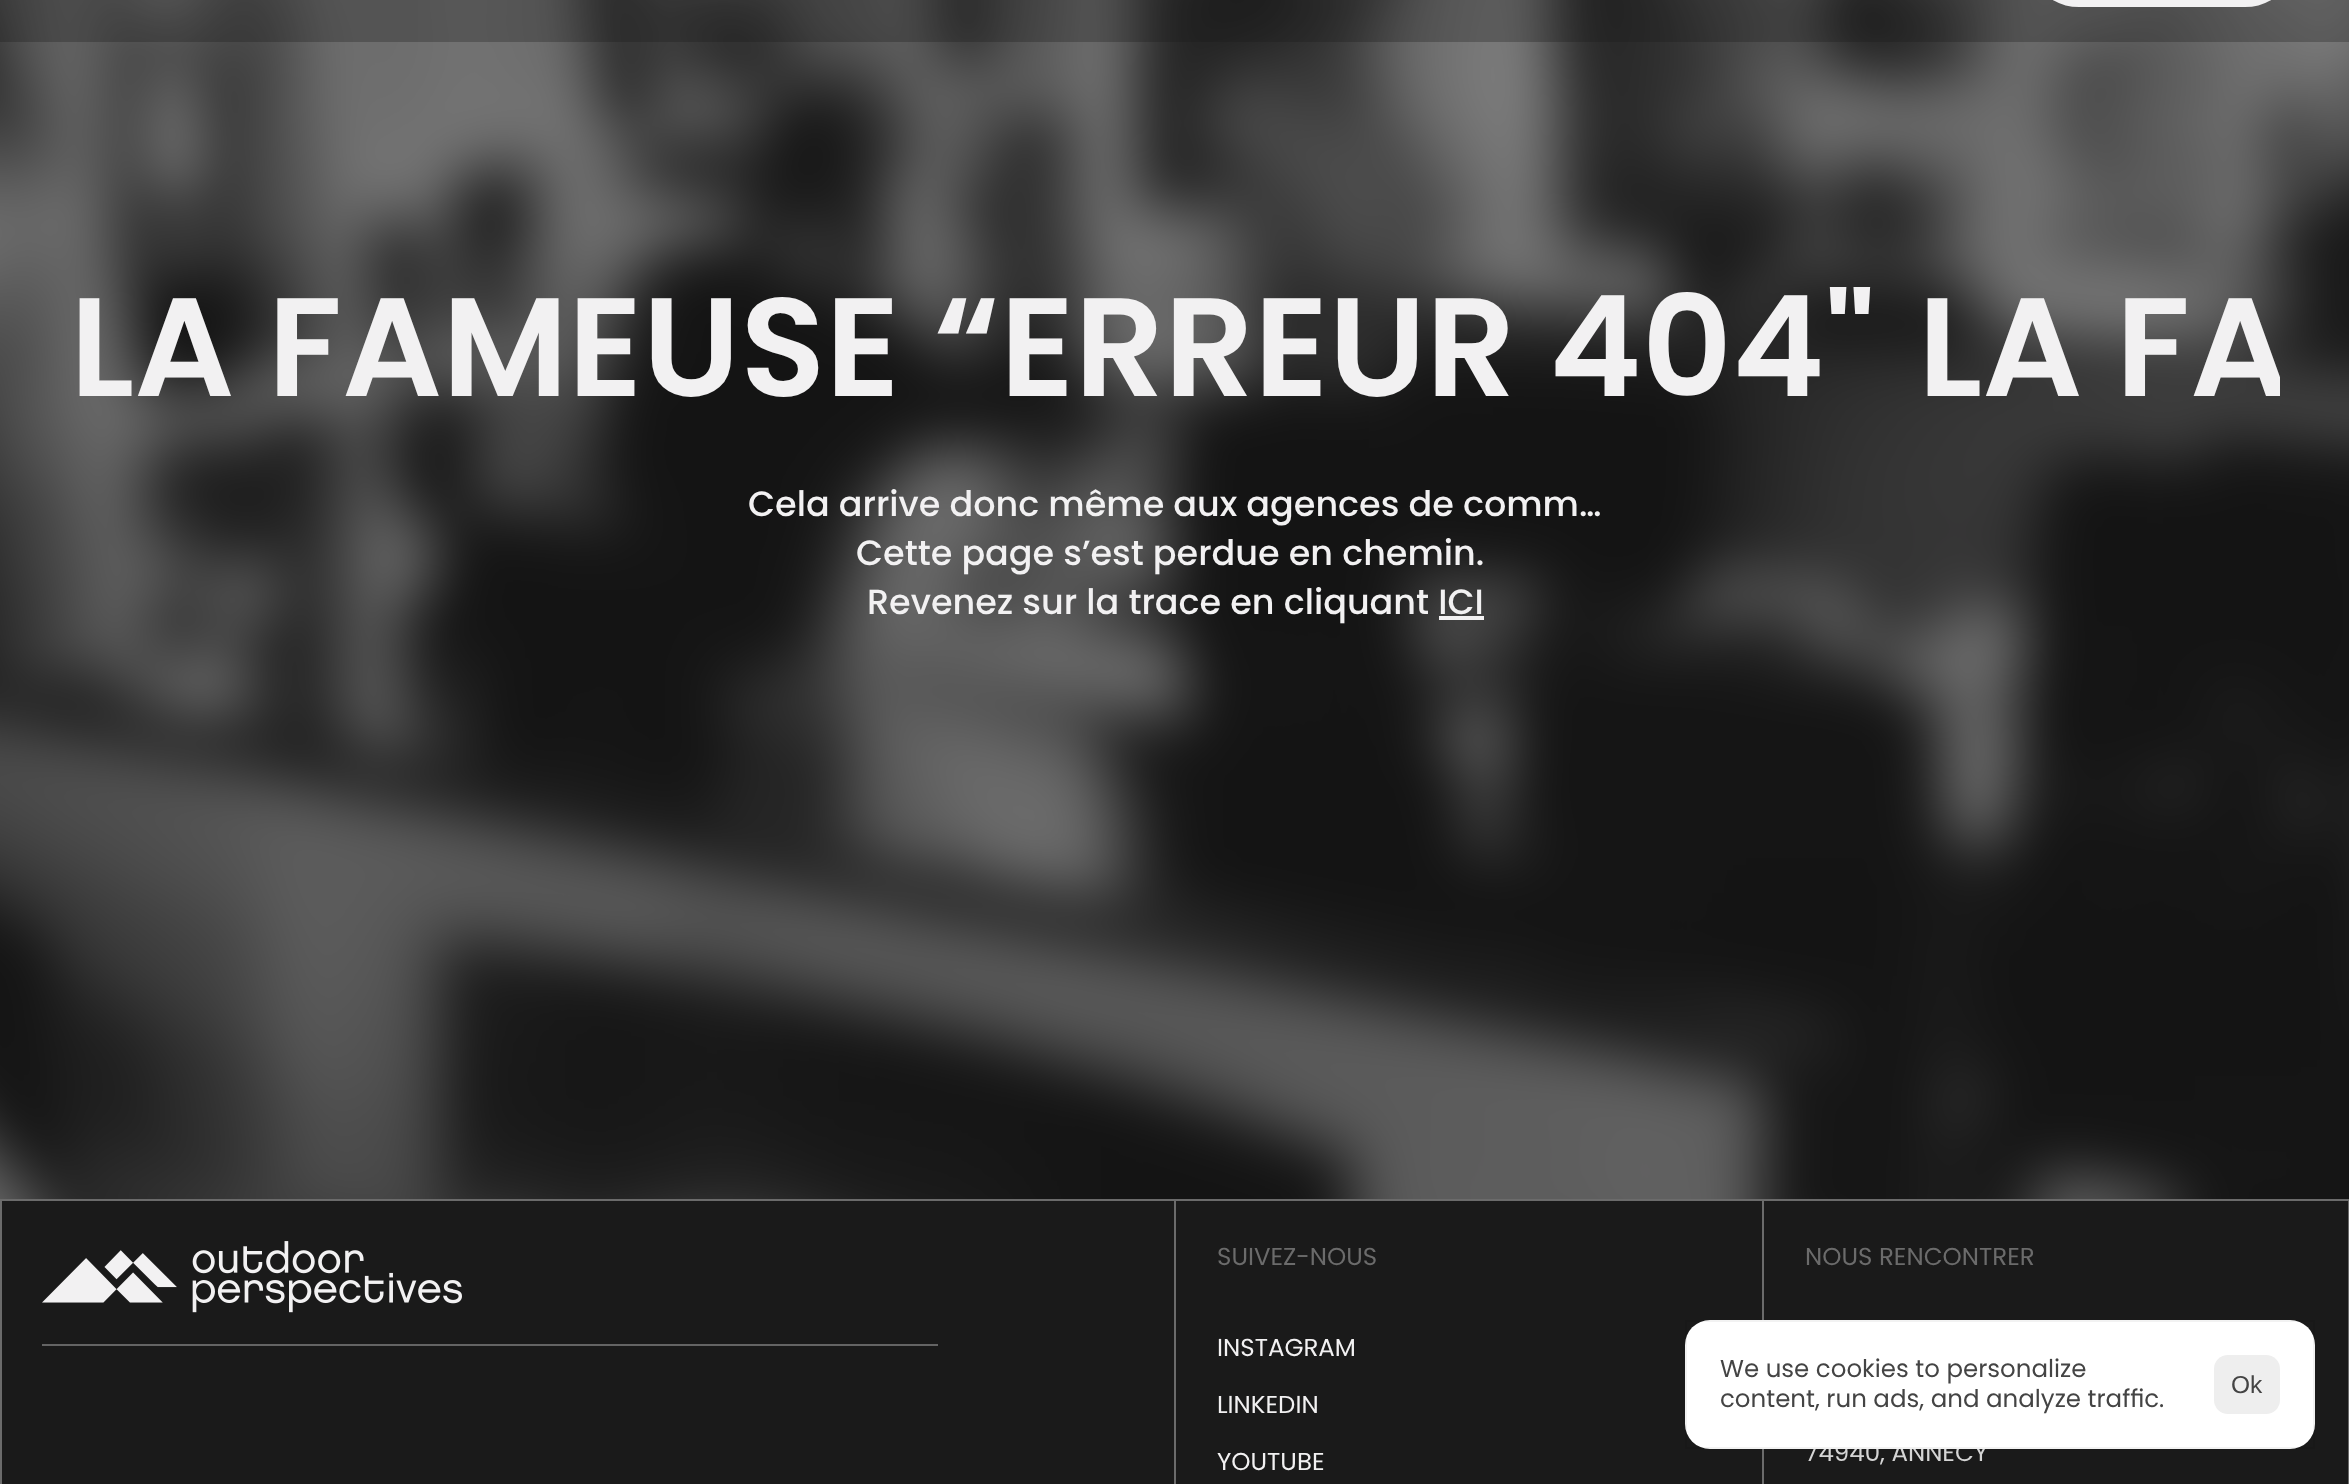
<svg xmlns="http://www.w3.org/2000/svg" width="2349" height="1484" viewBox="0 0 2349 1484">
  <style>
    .t1 { font: 600 140px Poppins; fill: #f2f1f2; }
    .t2 { font: 500 35px Poppins; fill: #f2f1f2; }
    .t3 { font: 24.5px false; fill: #6b6b6b; }
    .t4 { font: 24.5px false; fill: #f2f1f2; }
    .t5 { font: 24.5px false; fill: #d5d5d5; }
    .t6 { font: 24.5px false; fill: #444; }
    .t7 { font: 24.5px Liberation Sans; fill: #444; }
  </style>
  <defs>
    <clipPath id="clip1"><rect x="70" y="287" width="1806" height="123"/></clipPath>
    <clipPath id="clip2"><rect x="1918" y="287" width="362" height="123"/></clipPath>
  </defs>
  <rect width="100%" height="100%" fill="#1a1a1a"/>
  <image x="0" y="0" width="2349" height="1199" href="images/1.png"/>
  <rect x="0" y="0" width="2349" height="42" fill="#1a1a1a4d"/>
  <rect x="2044" y="-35" width="236" height="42" rx="35" fill="#f2f1f2"/>
  <g clip-path="url(#clip1)">
    <text x="70" y="396" class="t1">LA FAMEUSE “ERREUR 404"</text>
  </g>
  <g clip-path="url(#clip2)">
    <text x="1918" y="396" class="t1">LA FA</text>
  </g>
  <text x="748" y="516" class="t2">Cela arrive donc même aux agences de comm…</text>
  <text x="856" y="565" class="t2">Cette page s’est perdue en chemin.</text>
  <text x="867" y="614" class="t2">Revenez sur la trace en cliquant ICI</text>
  <rect x="1439" y="616" width="45" height="4" fill="#f2f1f2"/>
  <image x="42" y="1241" width="420" height="72" href="images/2.png"/>
  <rect x="1174" y="1199" width="2" height="285" fill="#6b6b6b"/>
  <rect x="1762" y="1199" width="2" height="285" fill="#6b6b6b"/>
  <rect x="1" y="1200" width="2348" height="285" fill="none" stroke="#6b6b6b" stroke-width="2"/>
  <rect x="42" y="1344" width="896" height="2" fill="#646464"/>
  <text x="1217" y="1265" class="t3">SUIVEZ-NOUS</text>
  <text x="1217" y="1356" class="t4">INSTAGRAM</text>
  <text x="1217" y="1413" class="t4">LINKEDIN</text>
  <text x="1217" y="1470" class="t4">YOUTUBE</text>
  <text x="1805" y="1265" class="t3">NOUS RENCONTRER</text>
  <text x="1805" y="1461" class="t5">74940, ANNECY</text>
  <rect x="1685" y="1320" width="630" height="129" rx="25" fill="#fff"/>
  <rect x="1686" y="1321" width="628" height="127" fill="none" stroke="#0000000d" stroke-width="2"/>
  <text x="1720" y="1377" class="t6">We use cookies to personalize</text>
  <text x="1720" y="1407" class="t6">content, run ads, and analyze traffic.</text>
  <rect x="2214" y="1355" width="66" height="59" rx="14" fill="#eee"/>
  <text x="2231" y="1393" class="t7">Ok</text>
</svg>
